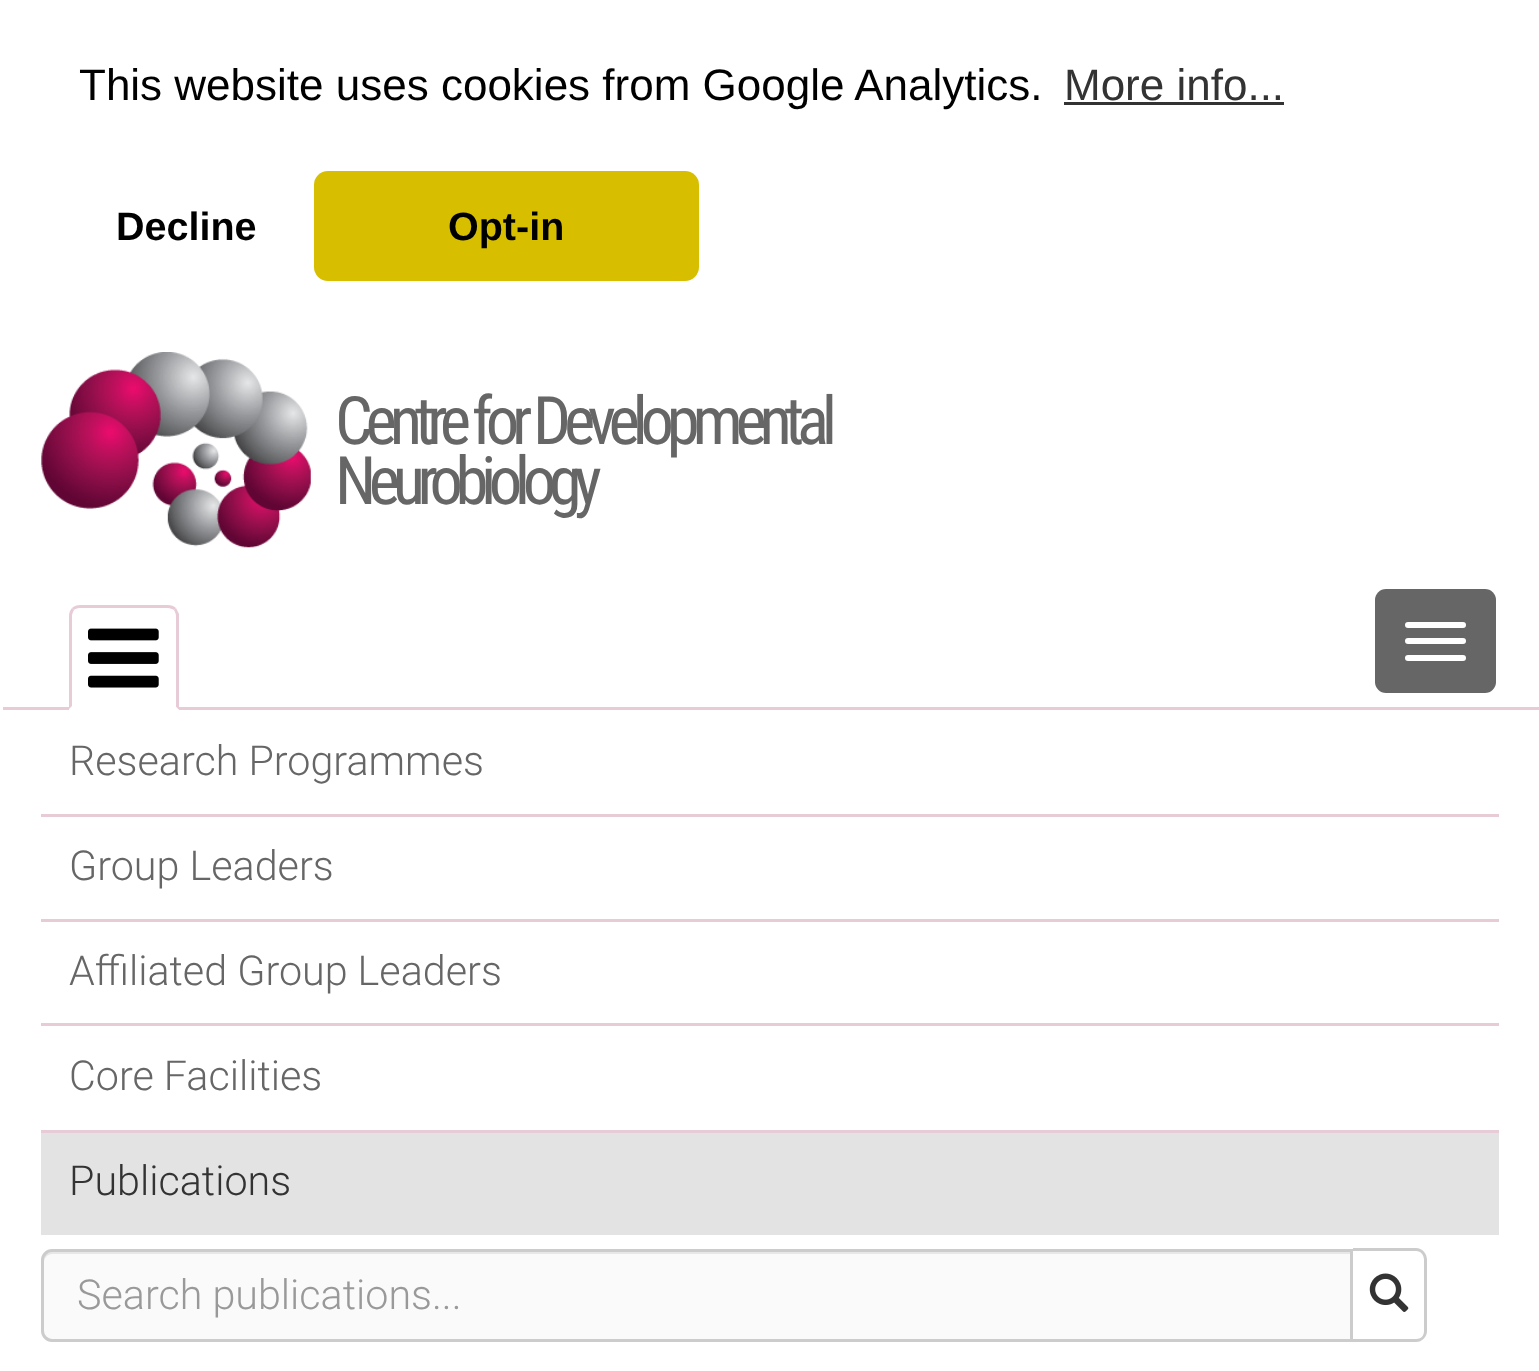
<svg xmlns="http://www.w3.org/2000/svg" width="1539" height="1371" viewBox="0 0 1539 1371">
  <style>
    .t1 { font: 44px Liberation Sans; fill: #000; }
    .t2 { font: 44px Liberation Sans; fill: #333; }
    .t3 { font: bold 39.5px Liberation Sans; fill: #000; }
    .t4 { font: 66.75px Roboto; letter-spacing: -7.25px; fill: #666; }
    .t5 { font: 66.75px Roboto; letter-spacing: -7.5px; fill: #666; }
    .t6 { font: 300 41.25px Roboto; fill: #666; }
    .t7 { font: 300 41.25px Roboto; fill: #333; }
    .t8 { font: 300 41.25px Roboto; fill: #999; }
  </style>
  <rect width="100%" height="100%" fill="#fff"/>
  <text x="79" y="100" class="t1">This website uses cookies from Google Analytics.</text>
  <text x="1064" y="100" class="t2">More info...</text>
  <rect x="1064" y="102" width="220" height="3" fill="#333"/>
  <text x="116" y="240" class="t3">Decline</text>
  <rect x="314" y="171" width="385" height="110" rx="14" fill="#d7bf00"/>
  <text x="448" y="240" class="t3">Opt-in</text>
  <image x="41" y="352" width="270" height="196" href="images/1.png"/>
  <text x="335" y="444" class="t4">Centre for Developmental</text>
  <text x="335" y="504" class="t5">Neurobiology</text>
  <rect x="0" y="707" width="1539" height="3" fill="#e7ccd8"/>
  <rect x="0" y="707" width="3" height="3" fill="#fff"/>
  <rect x="1375" y="589" width="121" height="104" rx="11" fill="#666"/>
  <rect x="1405" y="622" width="61" height="6" rx="3" fill="#fff"/>
  <rect x="1405" y="638" width="61" height="6" rx="3" fill="#fff"/>
  <rect x="1405" y="655" width="61" height="6" rx="3" fill="#fff"/>
  <path d="M80 605H168C174 605 179 610 179 616V710H69V616C69 610 74 605 80 605Z" fill="#fff"/>
  <path d="M80 605C77 605 74 606 72 608L74 610C75 609 77 608 80 608H168C170 608 172 609 174 610L176 608C174 606 171 605 168 605Z" fill="#e7ccd8"/>
  <path d="M176 608C177 610 178 612 179 614V710L176 707V616C176 614 175 612 174 610Z" fill="#e7ccd8"/>
  <path d="M179 710H69L72 706V707H176Z" fill="#fff"/>
  <path d="M72 608C70 610 69 613 69 616V709L72 706V616C72 614 73 612 74 610Z" fill="#e7ccd8"/>
  <image x="88" y="628" width="71" height="60" href="images/2.png"/>
  <text x="69" y="775" class="t6">Research Programmes</text>
  <rect x="41" y="814" width="1458" height="3" fill="#e7ccd8"/>
  <text x="69" y="880" class="t6">Group Leaders</text>
  <rect x="41" y="919" width="1458" height="3" fill="#e7ccd8"/>
  <text x="69" y="985" class="t6">Affiliated Group Leaders</text>
  <rect x="41" y="1023" width="1458" height="3" fill="#e7ccd8"/>
  <text x="69" y="1090" class="t6">Core Facilities</text>
  <rect x="41" y="1130" width="1458" height="3" fill="#e7ccd8"/>
  <rect x="41" y="1133" width="1458" height="102" fill="#e3e3e3"/>
  <text x="69" y="1195" class="t7">Publications</text>
  <path d="M52 1249H1353V1342H52C46 1342 41 1337 41 1331V1260C41 1254 46 1249 52 1249Z" fill="#fafafa"/>
  <path d="M52 1254H1350V1251H52C46 1251 44 1257 44 1262C44 1258 48 1254 52 1254Z" fill="#e7e7e7"/>
  <path d="M52 1250.5H1351.5V1340.5H52C47 1340.5 42.5 1336 42.5 1331V1260C42.5 1255 47 1250.5 52 1250.5Z" fill="none" stroke="#ccc" stroke-width="3"/>
  <text x="77" y="1309" class="t8">Search publications...</text>
  <path d="M1353 1248H1416C1422 1248 1427 1253 1427 1260V1331C1427 1337 1422 1342 1416 1342H1353ZM1353 1251H1416C1421 1251 1424 1255 1424 1260V1331C1424 1336 1421 1339 1416 1339H1353Z" fill="#ccc" fill-rule="evenodd"/>
  <image x="1369" y="1273" width="40" height="39" href="images/3.png"/>
</svg>
